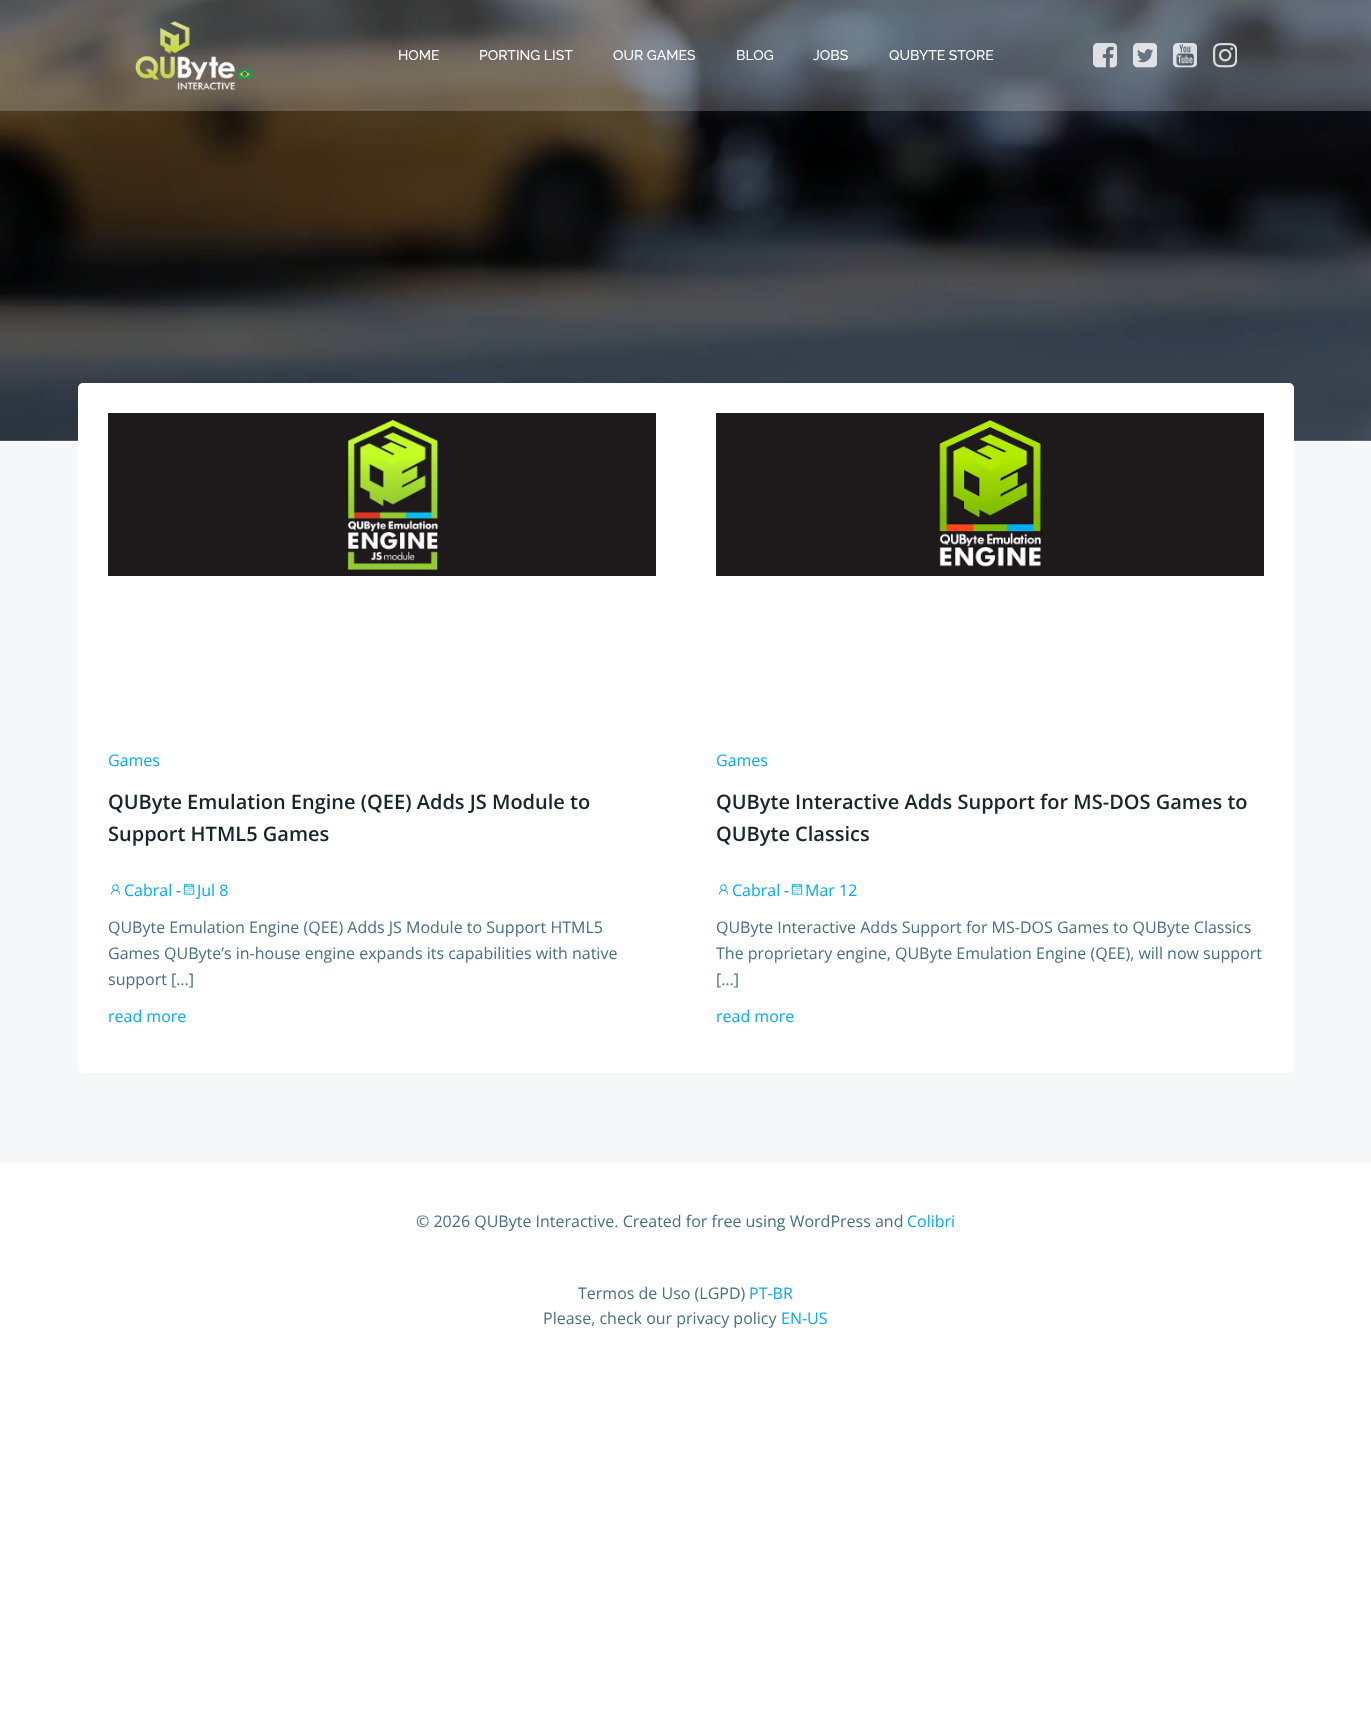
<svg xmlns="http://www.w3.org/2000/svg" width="1371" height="1719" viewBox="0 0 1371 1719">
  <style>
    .t1 { font: 500 14px Raleway; fill: #fff; }
    .t2 { font: 16px Open Sans; fill: #03a9f4; }
    .t3 { font: 600 20px Open Sans; fill: #17252a; }
    .t4 { font: 16px Open Sans; fill: #46707f; }
  </style>
  <rect width="100%" height="100%" fill="#fff"/>
  <image x="0" y="0" width="1371" height="441" href="images/1.png"/>
  <rect x="0" y="0" width="1371" height="111" fill="#ffffff33"/>
  <image x="135" y="21" width="117" height="70" href="images/2.png"/>
  <text x="398" y="60" class="t1">HOME</text>
  <text x="479" y="60" class="t1">PORTING LIST</text>
  <text x="613" y="60" class="t1">OUR GAMES</text>
  <text x="736" y="60" class="t1">BLOG</text>
  <text x="813" y="60" class="t1">JOBS</text>
  <text x="889" y="60" class="t1">QUBYTE STORE</text>
  <image x="1093" y="43" width="24" height="25" href="images/3.png"/>
  <image x="1133" y="43" width="24" height="25" href="images/4.png"/>
  <image x="1173" y="43" width="24" height="25" href="images/5.png"/>
  <image x="1213" y="43" width="24" height="25" href="images/6.png"/>
  <rect x="0" y="441" width="1371" height="722" fill="#f5f7f8"/>
  <rect x="78" y="383" width="1216" height="690" rx="5" fill="#fff"/>
  <image x="108" y="413" width="548" height="163" href="images/7.png"/>
  <text x="108" y="766" class="t2">Games</text>
  <text x="108" y="809" class="t3">QUByte Emulation Engine (QEE) Adds JS Module to</text>
  <text x="108" y="841" class="t3">Support HTML5 Games</text>
  <image x="110" y="884" width="11" height="11" href="images/8.png"/>
  <text x="124" y="896" class="t2">Cabral</text>
  <text x="176" y="896" class="t4">-</text>
  <image x="183" y="883" width="12" height="12" href="images/9.png"/>
  <text x="197" y="896" class="t2">Jul 8</text>
  <text x="108" y="933" class="t4">QUByte Emulation Engine (QEE) Adds JS Module to Support HTML5</text>
  <text x="108" y="959" class="t4">Games QUByte’s in-house engine expands its capabilities with native</text>
  <text x="108" y="985" class="t4">support […]</text>
  <text x="108" y="1022" class="t2">read more</text>
  <image x="716" y="413" width="548" height="163" href="images/10.png"/>
  <text x="716" y="766" class="t2">Games</text>
  <text x="716" y="809" class="t3">QUByte Interactive Adds Support for MS-DOS Games to</text>
  <text x="716" y="841" class="t3">QUByte Classics</text>
  <image x="718" y="884" width="11" height="11" href="images/8.png"/>
  <text x="732" y="896" class="t2">Cabral</text>
  <text x="784" y="896" class="t4">-</text>
  <image x="791" y="883" width="12" height="12" href="images/9.png"/>
  <text x="805" y="896" class="t2">Mar 12</text>
  <text x="716" y="933" class="t4">QUByte Interactive Adds Support for MS-DOS Games to QUByte Classics</text>
  <text x="716" y="959" class="t4">The proprietary engine, QUByte Emulation Engine (QEE), will now support</text>
  <text x="716" y="985" class="t4">[…]</text>
  <text x="716" y="1022" class="t2">read more</text>
  <text x="416" y="1227" class="t4">© 2026 QUByte Interactive. Created for free using WordPress and</text>
  <text x="907" y="1227" class="t2">Colibri</text>
  <text x="578" y="1299" class="t4">Termos de Uso (LGPD)</text>
  <text x="749" y="1299" class="t2">PT-BR</text>
  <text x="543" y="1324" class="t4">Please, check our privacy policy</text>
  <text x="781" y="1324" class="t2">EN-US</text>
</svg>
